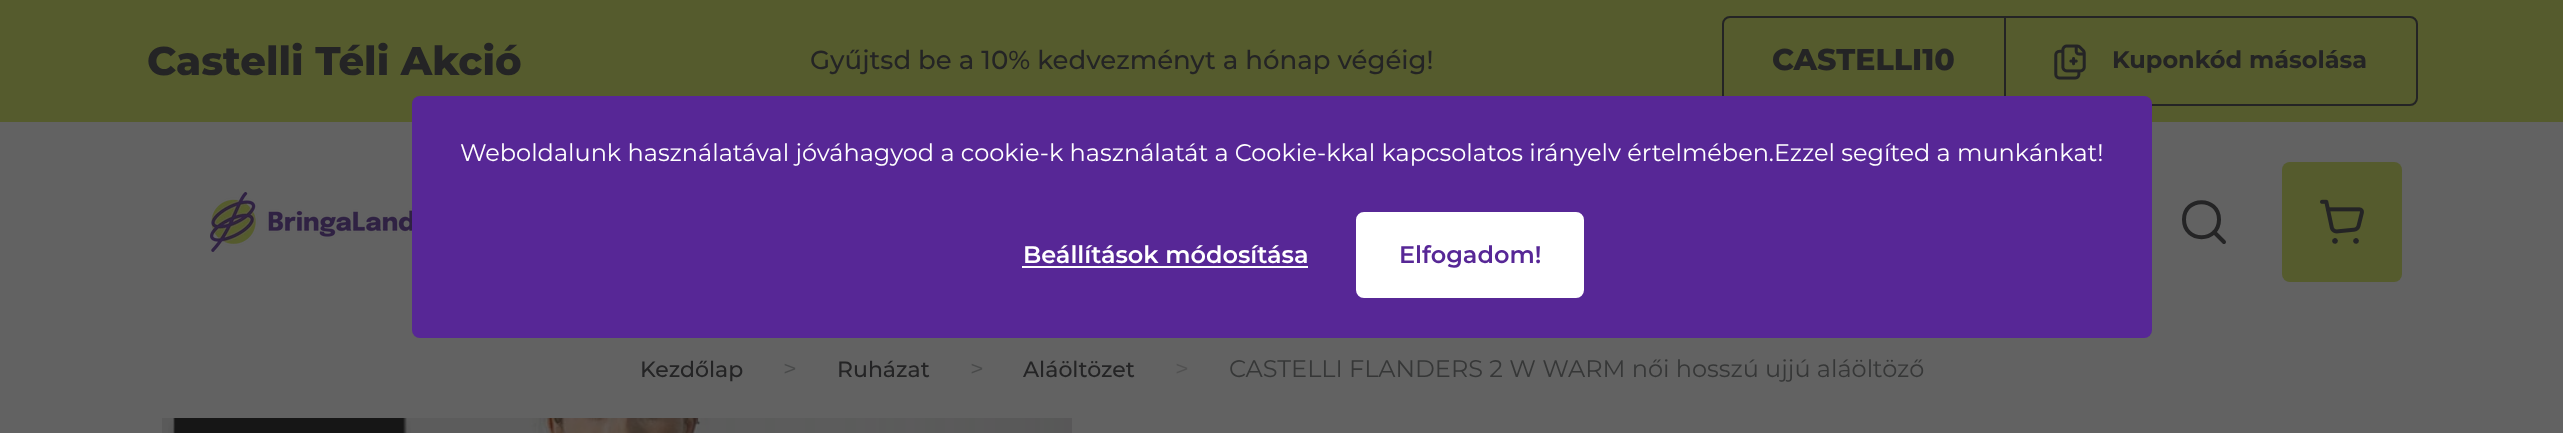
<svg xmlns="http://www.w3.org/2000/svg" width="2563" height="433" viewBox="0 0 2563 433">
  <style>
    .t1 { font: 800 40px Montserrat; fill: #242425; }
    .t2 { font: 500 26px Montserrat; fill: #242425; }
    .t3 { font: 800 30px Montserrat; fill: #242425; }
    .t4 { font: bold 24px Montserrat; fill: #242425; }
    .t5 { font: 500 22px Montserrat; fill: #242425; }
    .t6 { font: 24px Montserrat; fill: #494a4a; }
    .t7 { font: 24px Montserrat; fill: #515151; }
    .t8 { font: 24px Montserrat; fill: #363737; }
    .t9 { font: 24px Montserrat; fill: #fff; }
    .t10 { font: 600 24px Montserrat; fill: #fff; }
    .t11 { font: 600 24px Montserrat; fill: #572796; }
  </style>
  <rect width="100%" height="100%" fill="#626262"/>
  <rect x="0" y="0" width="2563" height="122" fill="#555b2d"/>
  <text x="147" y="75" class="t1">Castelli Téli Akció</text>
  <text x="810" y="69" class="t2">Gyűjtsd be a 10% kedvezményt a hónap végéig!</text>
  <rect x="1723" y="17" width="694" height="88" rx="7" fill="none" stroke="#242425" stroke-width="2"/>
  <text x="1772" y="70" class="t3">CASTELLI10</text>
  <rect x="2004" y="18" width="2" height="86" fill="#242425"/>
  <image x="2054" y="44" width="32" height="36" href="images/1.png"/>
  <text x="2112" y="68" class="t4">Kuponkód másolása</text>
  <image x="210" y="192" width="202" height="60" href="images/2.png"/>
  <path d="M2224 242L2214 232M2219 219.5C2219 243 2184 243 2184 219.5C2184 196.5 2219 196.5 2219 219.5Z" fill="none" stroke="#242425" stroke-width="4" stroke-linecap="round" stroke-linejoin="round"/>
  <rect x="2282" y="162" width="120" height="120" rx="8" fill="#555b2d"/>
  <image x="2320" y="199" width="44" height="45" href="images/3.png"/>
  <text x="640" y="377" class="t5">Kezdőlap</text>
  <text x="783" y="377" class="t6">&gt;</text>
  <text x="837" y="377" class="t5">Ruházat</text>
  <text x="970" y="377" class="t6">&gt;</text>
  <text x="1023" y="377" class="t5">Aláöltözet</text>
  <text x="1175" y="377" class="t7">&gt;</text>
  <text x="1229" y="377" class="t8">CASTELLI FLANDERS 2 W WARM női hosszú ujjú aláöltöző</text>
  <image x="162" y="418" width="910" height="15" href="images/4.png"/>
  <image x="168" y="418" width="243" height="15" href="images/5.png"/>
  <rect x="412" y="96" width="1740" height="242" rx="8" fill="#572796"/>
  <text x="460" y="161" class="t9">Weboldalunk használatával jóváhagyod a cookie-k használatát a Cookie-kkal kapcsolatos irányelv értelmében.Ezzel segíted a munkánkat!</text>
  <text x="1023" y="263" class="t10">Beállítások módosítása</text>
  <rect x="1022" y="266" width="286" height="2" fill="#fff"/>
  <rect x="1358" y="214" width="224" height="82" rx="6" fill="#fff" stroke="#fff" stroke-width="4"/>
  <text x="1399" y="263" class="t11">Elfogadom!</text>
</svg>
